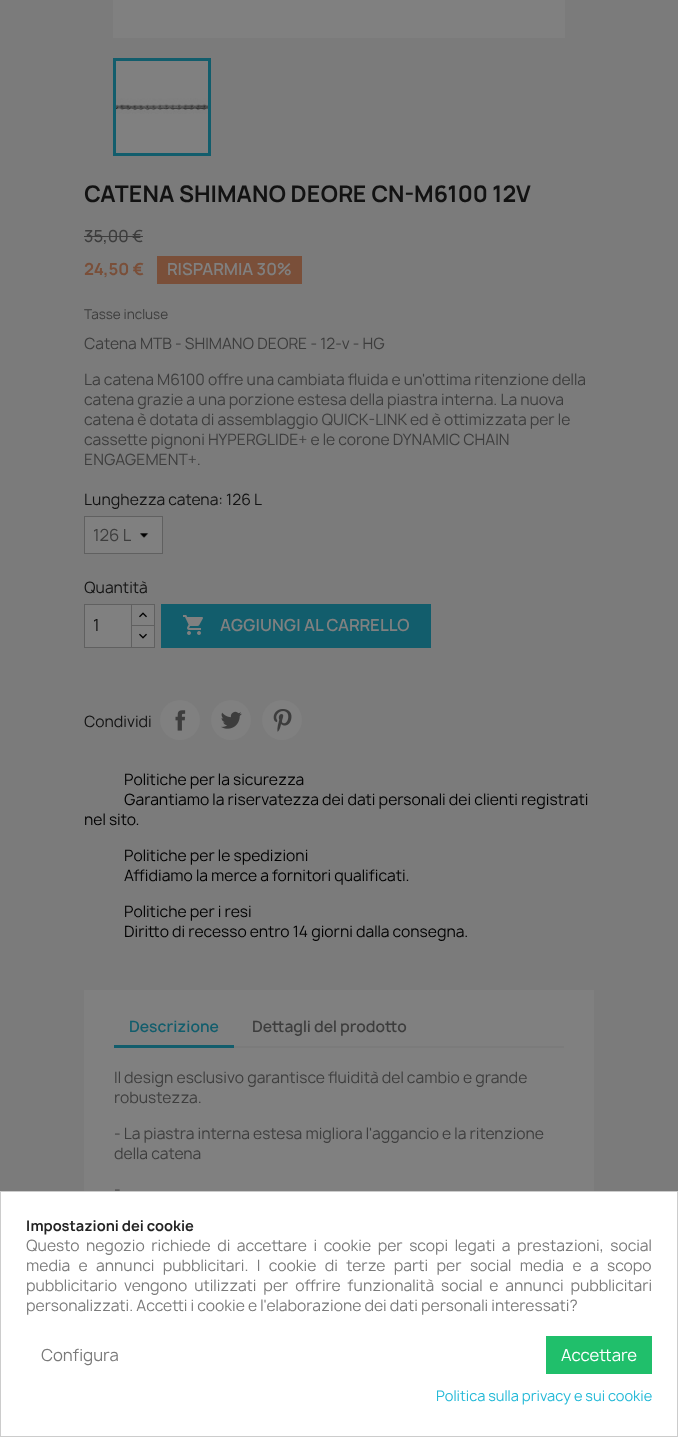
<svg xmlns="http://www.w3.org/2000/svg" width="678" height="1437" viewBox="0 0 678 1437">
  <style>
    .t1 { font: bold 22px Manrope; fill: #121212; }
    .t2 { font: 500 16px Manrope; fill: #3d3d3d; }
    .t3 { font: bold 16px Manrope; fill: #7a4f39; }
    .t4 { font: 600 16px Manrope; fill: #808080; }
    .t5 { font: 13px Manrope; fill: #3d3d3d; }
    .t6 { font: 15px Manrope; fill: #3d3d3d; }
    .t7 { font: 15px Manrope; fill: #121212; }
    .t8 { font: 16px Manrope; fill: #3d3d3d; }
    .t9 { font: 16px Manrope; fill: #121212; }
    .t10 { font: 15px Manrope; fill: #000; }
    .t11 { font: 600 15px Manrope; fill: #125d6c; }
    .t12 { font: 600 15px Manrope; fill: #3d3d3d; }
    .t13 { font: bold 14px Manrope; fill: #232323; }
    .t14 { font: 15px Manrope; fill: #7a7a7a; }
    .t15 { font: 16px Manrope; fill: #7a7a7a; }
    .t16 { font: 16px Manrope; fill: #fff; }
    .t17 { font: 14px Manrope; fill: #24b9d7; }
  </style>
  <rect width="100%" height="100%" fill="#7b7b7b"/>
  <rect x="113" y="0" width="452" height="38" fill="#808080"/>
  <rect x="114.5" y="59.5" width="95" height="95" fill="none" stroke="#125d6c" stroke-width="3"/>
  <image x="116" y="61" width="92" height="92" href="images/1.png"/>
  <text x="84" y="202" class="t1">CATENA SHIMANO DEORE CN-M6100 12V</text>
  <text x="84" y="242" class="t2">35,00 €</text>
  <rect x="84" y="236" width="59" height="1" fill="#3d3d3d"/>
  <text x="84" y="275" class="t3">24,50 €</text>
  <rect x="157" y="256" width="145" height="28" fill="#7a4f39"/>
  <text x="167" y="275" class="t4">RISPARMIA 30%</text>
  <text x="84" y="319" class="t5">Tasse incluse</text>
  <text x="84" y="349" class="t6">Catena MTB - SHIMANO DEORE - 12-v - HG</text>
  <text x="84" y="385" class="t6">La catena M6100 offre una cambiata fluida e un'ottima ritenzione della</text>
  <text x="84" y="405" class="t6">catena grazie a una porzione estesa della piastra interna. La nuova</text>
  <text x="84" y="425" class="t6">catena è dotata di assemblaggio QUICK-LINK ed è ottimizzata per le</text>
  <text x="84" y="445" class="t6">cassette pignoni HYPERGLIDE+ e le corone DYNAMIC CHAIN</text>
  <text x="84" y="465" class="t6">ENGAGEMENT+.</text>
  <text x="84" y="505" class="t7">Lunghezza catena: 126 L</text>
  <rect x="85" y="517" width="77" height="36" fill="#808080"/>
  <image x="140" y="533" width="9" height="5" href="images/2.png"/>
  <rect x="84.5" y="516.5" width="78" height="37" fill="none" stroke="#606060"/>
  <text x="93" y="541" class="t8">126 L</text>
  <text x="84" y="593" class="t7">Quantità</text>
  <rect x="132" y="605" width="22" height="20" fill="#808080"/>
  <rect x="131.5" y="604.5" width="23" height="22" fill="none" stroke="#606060"/>
  <rect x="131.5" y="625.5" width="23" height="22" fill="#808080" stroke="#606060"/>
  <rect x="84.5" y="604.5" width="47" height="43" fill="#808080" stroke="#606060"/>
  <text x="93" y="631" class="t9">1</text>
  <image x="139" y="612" width="8" height="6" href="images/3.png"/>
  <image x="139" y="633" width="8" height="6" href="images/4.png"/>
  <rect x="161" y="604" width="270" height="44" fill="#125d6c"/>
  <image x="183" y="615" width="20" height="20" href="images/5.png"/>
  <text x="220" y="631" class="t4">AGGIUNGI AL CARRELLO</text>
  <text x="84" y="727" class="t7">Condividi</text>
  <circle cx="180" cy="720" r="20" fill="#808080"/>
  <image x="175" y="710" width="11" height="21" href="images/6.png"/>
  <circle cx="231" cy="720" r="20" fill="#808080"/>
  <image x="221" y="711" width="21" height="18" href="images/7.png"/>
  <circle cx="282" cy="720" r="20" fill="#808080"/>
  <image x="273" y="709" width="19" height="23" href="images/8.png"/>
  <text x="124" y="785" class="t10">Politiche per la sicurezza</text>
  <text x="124" y="805" class="t10">Garantiamo la riservatezza dei dati personali dei clienti registrati</text>
  <text x="84" y="825" class="t10">nel sito.</text>
  <text x="124" y="861" class="t10">Politiche per le spedizioni</text>
  <text x="124" y="881" class="t10">Affidiamo la merce a fornitori qualificati.</text>
  <text x="124" y="917" class="t10">Politiche per i resi</text>
  <text x="124" y="937" class="t10">Diritto di recesso entro 14 giorni dalla consegna.</text>
  <rect x="84" y="990" width="510" height="201" fill="#808080"/>
  <rect x="234" y="1046" width="330" height="2" fill="#7b7b7b"/>
  <rect x="114" y="1045" width="120" height="3" fill="#125d6c"/>
  <text x="129" y="1032" class="t11">Descrizione</text>
  <text x="252" y="1032" class="t12">Dettagli del prodotto</text>
  <text x="114" y="1083" class="t6">Il design esclusivo garantisce fluidità del cambio e grande</text>
  <text x="114" y="1103" class="t6">robustezza.</text>
  <text x="114" y="1139" class="t6">- La piastra interna estesa migliora l'aggancio e la ritenzione</text>
  <text x="114" y="1159" class="t6">della catena</text>
  <text x="114" y="1195" class="t6">-</text>
  <rect x="0.5" y="1191.5" width="677" height="245" fill="#fff" stroke="#ccc"/>
  <text x="26" y="1231" class="t13">Impostazioni dei cookie</text>
  <text x="26" y="1251" word-spacing="3.4" class="t14">Questo negozio richiede di accettare i cookie per scopi legati a prestazioni, social</text>
  <text x="26" y="1271" word-spacing="5.25" class="t14">media e annunci pubblicitari. I cookie di terze parti per social media e a scopo</text>
  <text x="26" y="1291" word-spacing="3.75" class="t14">pubblicitario vengono utilizzati per offrire funzionalità social e annunci pubblicitari</text>
  <text x="26" y="1311" class="t14">personalizzati. Accetti i cookie e l'elaborazione dei dati personali interessati?</text>
  <text x="41" y="1361" class="t15">Configura</text>
  <rect x="546" y="1336" width="106" height="38" fill="#20bf6b"/>
  <text x="561" y="1361" class="t16">Accettare</text>
  <text x="436" y="1401" class="t17">Politica sulla privacy e sui cookie</text>
</svg>
